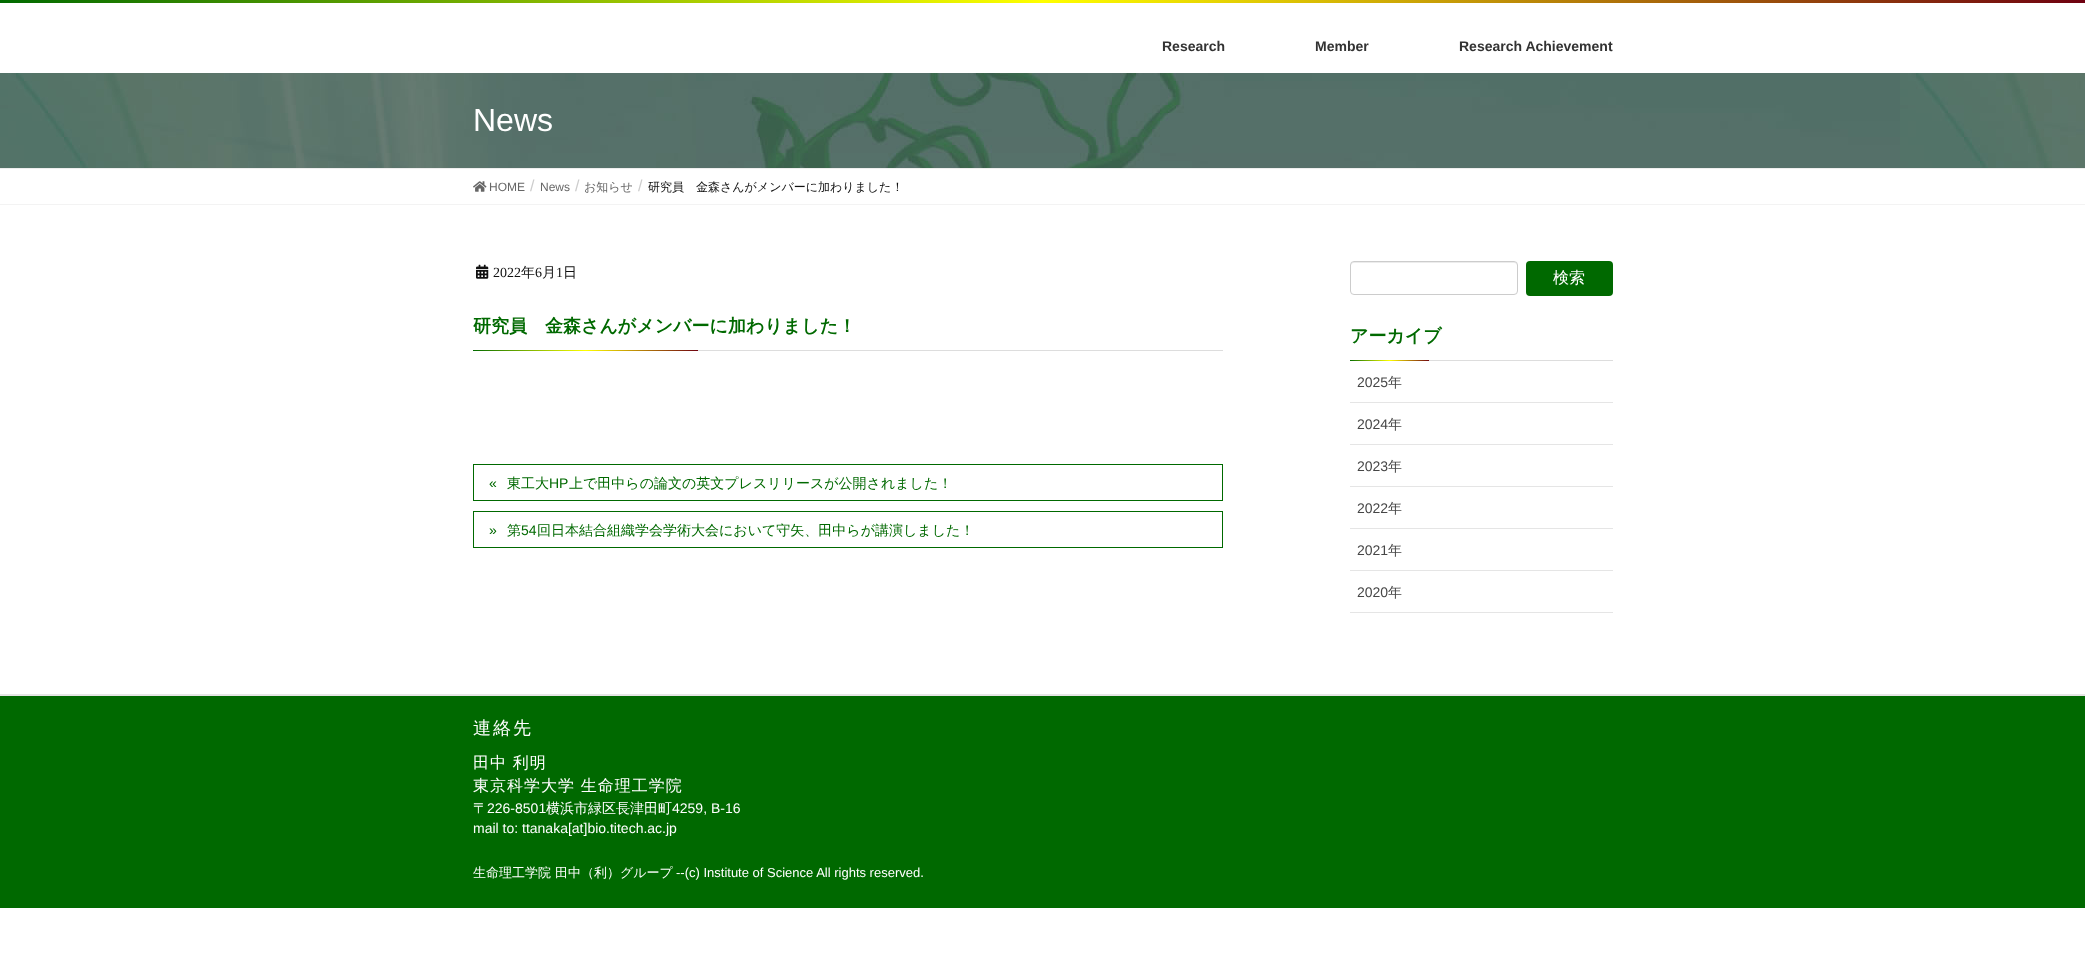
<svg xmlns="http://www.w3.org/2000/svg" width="2085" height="954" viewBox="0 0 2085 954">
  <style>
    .t1 { font: bold 14px Liberation Sans; fill: #333; }
    .t2 { font: 32px Liberation Sans; fill: #fff; }
    .t3 { font: 12px Liberation Sans; fill: #666; }
    .t4 { font: 16px Liberation Sans; fill: #ccc; }
    .t5 { font: 500 12px WenQuanYi Zen Hei; fill: #666; }
    .t6 { font: 500 12px WenQuanYi Zen Hei; fill: #111; }
    .t7 { font: 14px Liberation Serif; fill: #111; }
    .t8 { font: 500 14px WenQuanYi Zen Hei; fill: #111; }
    .t9 { font: bold 18px WenQuanYi Zen Hei; fill: #006900; }
    .t10 { font: 14px Liberation Sans; fill: #006900; }
    .t11 { font: 500 14px WenQuanYi Zen Hei; fill: #006900; }
    .t12 { font: 500 16px WenQuanYi Zen Hei; fill: #fff; }
    .t13 { font: 14px Liberation Sans; fill: #464646; }
    .t14 { font: 500 14px WenQuanYi Zen Hei; fill: #464646; }
    .t15 { font: 500 18px WenQuanYi Zen Hei; letter-spacing: 2px; fill: #fff; }
    .t16 { font: 500 16px WenQuanYi Zen Hei; letter-spacing: 1px; fill: #fff; }
    .t17 { font: 500 14px WenQuanYi Zen Hei; fill: #fff; }
    .t18 { font: 14px Liberation Sans; fill: #fff; }
    .t19 { font: 500 13px WenQuanYi Zen Hei; fill: #fff; }
    .t20 { font: 13px Liberation Sans; fill: #fff; }
  </style>
  <rect width="100%" height="100%" fill="#fff"/>
  <image x="0" y="0" width="2085" height="3" href="images/1.png"/>
  <text x="1162" y="51" class="t1">Research</text>
  <text x="1315" y="51" class="t1">Member</text>
  <text x="1459" y="51" class="t1">Research Achievement</text>
  <image x="0" y="73" width="2085" height="95" href="images/2.png"/>
  <rect x="0" y="168" width="2085" height="1" fill="#eee"/>
  <text x="473" y="131" class="t2">News</text>
  <rect x="0" y="204" width="2085" height="1" fill="#f3f3f3"/>
  <image x="473" y="181" width="14" height="11" href="images/3.png"/>
  <text x="489" y="191" class="t3">HOME</text>
  <text x="530" y="191" class="t4">/</text>
  <text x="540" y="191" class="t3">News</text>
  <text x="575" y="191" class="t4">/</text>
  <text x="584" y="191" class="t5">お知らせ</text>
  <text x="638" y="191" class="t4">/</text>
  <text x="648" y="191" class="t6">研究員　金森さんがメンバーに加わりました！</text>
  <image x="476" y="264" width="13" height="15" href="images/4.png"/>
  <text x="493" y="277" class="t7">2022</text>
  <text x="521" y="277" class="t8">年</text>
  <text x="535" y="277" class="t7">6</text>
  <text x="542" y="277" class="t8">月</text>
  <text x="556" y="277" class="t7">1</text>
  <text x="563" y="277" class="t8">日</text>
  <rect x="698" y="350" width="525" height="1" fill="#ddd"/>
  <text x="473" y="332" class="t9">研究員　金森さんがメンバーに加わりました！</text>
  <image x="473" y="350" width="225" height="1" href="images/5.png"/>
  <rect x="473.5" y="464.5" width="749" height="36" fill="none" stroke="#006900"/>
  <text x="489" y="488" class="t10">«</text>
  <text x="507" y="488" class="t11">東工大</text>
  <text x="549" y="488" class="t10">HP</text>
  <text x="569" y="488" class="t11">上で田中らの論文の英文プレスリリースが公開されました！</text>
  <rect x="473.5" y="511.5" width="749" height="36" fill="none" stroke="#006900"/>
  <text x="489" y="535" class="t10">»</text>
  <text x="507" y="535" class="t11">第</text>
  <text x="521" y="535" class="t10">54</text>
  <text x="537" y="535" class="t11">回日本結合組織学会学術大会において守矢、田中らが講演しました！</text>
  <path d="M1354 263H1514C1516 263 1517 264 1517 266V265C1517 263 1516 262 1514 262H1354C1352 262 1351 263 1351 265V266C1351 264 1352 263 1354 263Z" fill="#ececec"/>
  <rect x="1350.5" y="261.5" width="167" height="33" rx="3.5" fill="none" stroke="#ccc"/>
  <rect x="1526" y="261" width="87" height="35" rx="4" fill="#006900"/>
  <text x="1553" y="283" class="t12">検索</text>
  <rect x="1429" y="360" width="184" height="1" fill="#ddd"/>
  <text x="1350" y="342" class="t9">アーカイブ</text>
  <image x="1350" y="360" width="79" height="1" href="images/6.png"/>
  <rect x="1350" y="402" width="263" height="1" fill="#e5e5e5"/>
  <text x="1357" y="387" class="t13">2025</text>
  <text x="1388" y="387" class="t14">年</text>
  <rect x="1350" y="444" width="263" height="1" fill="#e5e5e5"/>
  <text x="1357" y="429" class="t13">2024</text>
  <text x="1388" y="429" class="t14">年</text>
  <rect x="1350" y="486" width="263" height="1" fill="#e5e5e5"/>
  <text x="1357" y="471" class="t13">2023</text>
  <text x="1388" y="471" class="t14">年</text>
  <rect x="1350" y="528" width="263" height="1" fill="#e5e5e5"/>
  <text x="1357" y="513" class="t13">2022</text>
  <text x="1388" y="513" class="t14">年</text>
  <rect x="1350" y="570" width="263" height="1" fill="#e5e5e5"/>
  <text x="1357" y="555" class="t13">2021</text>
  <text x="1388" y="555" class="t14">年</text>
  <rect x="1350" y="612" width="263" height="1" fill="#e5e5e5"/>
  <text x="1357" y="597" class="t13">2020</text>
  <text x="1388" y="597" class="t14">年</text>
  <rect x="0" y="696" width="2085" height="212" fill="#006900"/>
  <rect x="0" y="694" width="2085" height="2" fill="#e5e5e5"/>
  <text x="473" y="734" class="t15">連絡先</text>
  <text x="473" y="768" class="t16">田中 利明</text>
  <text x="473" y="791" class="t16">東京科学大学 生命理工学院</text>
  <text x="473" y="813" class="t17">〒</text>
  <text x="487" y="813" class="t18">226-8501</text>
  <text x="546" y="813" class="t17">横浜市緑区長津田町</text>
  <text x="672" y="813" class="t18">4259, B-16</text>
  <text x="473" y="833" class="t18">mail to: ttanaka[at]bio.titech.ac.jp</text>
  <text x="473" y="877" class="t19">生命理工学院 田中（利）グループ</text>
  <text x="676" y="877" class="t20">--(c) Institute of Science All rights reserved.</text>
</svg>
